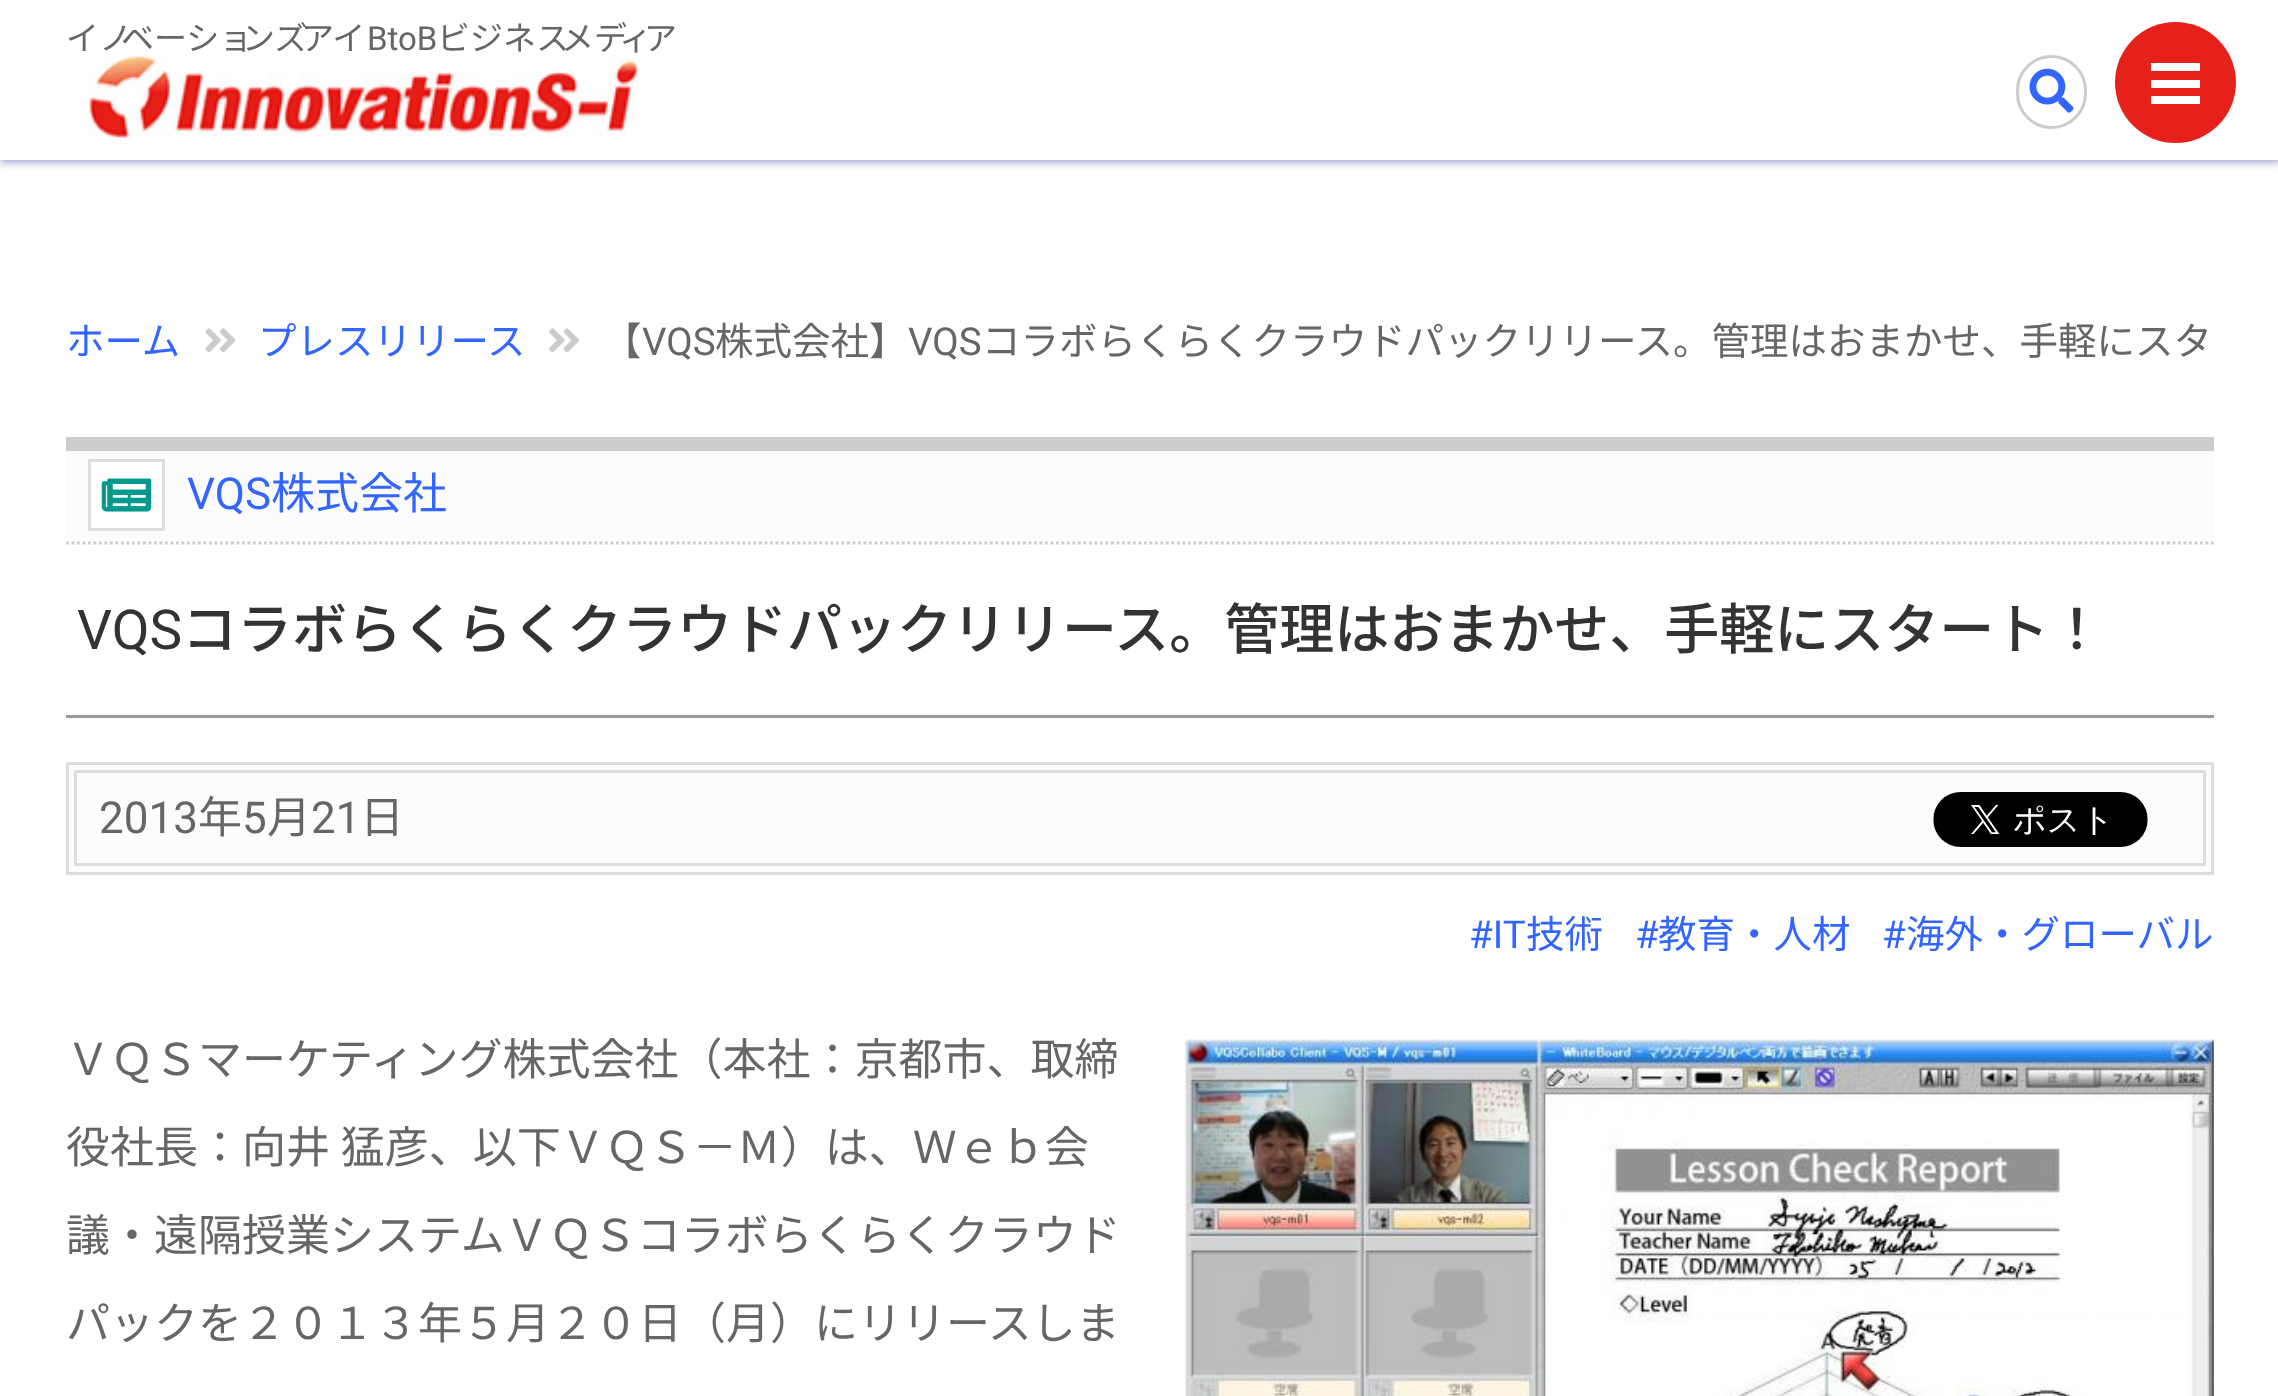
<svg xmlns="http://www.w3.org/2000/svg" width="2278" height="1396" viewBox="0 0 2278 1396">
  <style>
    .t1 { font: 33px Noto Sans JP; fill: #666; }
    .t2 { font: 33px Roboto; fill: #666; }
    .t3 { font: 38.5px Noto Sans JP; fill: #36f; }
    .t4 { font: 38.5px Noto Sans JP; fill: #666; }
    .t5 { font: 38.5px Roboto; fill: #666; }
    .t6 { font: 44px Roboto; fill: #36f; }
    .t7 { font: 44px Noto Sans JP; fill: #36f; }
    .t8 { font: 55px Roboto; fill: #333; }
    .t9 { font: 500 55px Noto Sans JP; fill: #333; }
    .t10 { font: 44px Roboto; fill: #666; }
    .t11 { font: 44px Noto Sans JP; fill: #666; }
    .t12 { font: 38.5px Roboto; fill: #36f; }
  </style>
  <rect width="100%" height="100%" fill="#fff"/>
  <rect x="0" y="3" width="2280" height="159" fill="#99c" filter="blur(4px)"/>
  <rect x="0" y="0" width="2278" height="160" fill="#fff"/>
  <text x="66" y="50" class="t1">イノ</text>
  <text x="121" y="50" class="t1">ベーショ</text>
  <text x="242" y="50" class="t1">ンズ</text>
  <text x="301" y="50" class="t1">アイ</text>
  <text x="367" y="50" class="t2">BtoB</text>
  <text x="437" y="50" class="t1">ビジネス</text>
  <text x="561" y="50" class="t1">メデ</text>
  <text x="619" y="50" class="t1">ィ</text>
  <text x="644" y="50" class="t1">ア</text>
  <circle cx="2175.5" cy="82.5" r="60.5" fill="#e6211b"/>
  <rect x="2151" y="80" width="49" height="8" fill="#fff"/>
  <rect x="2151" y="63" width="49" height="8" fill="#fff"/>
  <rect x="2151" y="96" width="49" height="8" fill="#fff"/>
  <image x="88" y="55" width="550" height="83" href="images/1.png"/>
  <rect x="2017.5" y="56.5" width="68" height="71" rx="34" fill="none" stroke="#ccc" stroke-width="3"/>
  <image x="2029" y="68" width="45" height="45" href="images/2.png"/>
  <text x="66" y="355" class="t3">ホーム</text>
  <image x="205" y="328" width="31" height="25" href="images/3.png"/>
  <text x="258" y="355" class="t3">プレスリリース</text>
  <image x="549" y="328" width="30" height="25" href="images/4.png"/>
  <text x="603" y="355" class="t4">【</text>
  <text x="642" y="355" class="t5">VQS</text>
  <text x="715" y="355" class="t4">株式会社】</text>
  <text x="908" y="355" class="t5">VQS</text>
  <text x="982" y="355" class="t4">コラボらくらくクラウドパックリリース。管理はおまかせ、手軽にスタ</text>
  <rect x="66" y="451" width="2148" height="94" fill="#fcfcfc"/>
  <rect x="66" y="437" width="2148" height="14" fill="#ccc"/>
  <path d="M66 543H2214" fill="none" stroke="#ccc" stroke-width="2.8" stroke-dasharray="2.75 2.75"/>
  <rect x="89.5" y="460.5" width="74" height="69" fill="#fff" stroke="#ddd" stroke-width="3"/>
  <text x="187" y="509" class="t6">VQS</text>
  <text x="271" y="509" class="t7">株式会社</text>
  <image x="101" y="478" width="51" height="34" href="images/5.png"/>
  <rect x="66" y="715" width="2148" height="3" fill="#999"/>
  <text x="77" y="649" class="t8">VQS</text>
  <text x="182" y="649" class="t9">コラボらくらくクラウドパックリリース。管理はおまかせ、手軽にスタート！</text>
  <rect x="67.5" y="763.5" width="2145" height="110" fill="#fcfcfc" stroke="#ddd" stroke-width="3"/>
  <rect x="75.5" y="771.5" width="2129" height="93" fill="none" stroke="#ddd" stroke-width="3"/>
  <text x="99" y="833" class="t10">2013</text>
  <text x="198" y="833" class="t11">年</text>
  <text x="242" y="833" class="t10">5</text>
  <text x="267" y="833" class="t11">月</text>
  <text x="311" y="833" class="t10">21</text>
  <text x="360" y="833" class="t11">日</text>
  <image x="1933" y="792" width="215" height="55" href="images/6.png"/>
  <text x="1469" y="948" class="t12">#IT</text>
  <text x="1526" y="948" class="t3">技術</text>
  <text x="1635" y="948" class="t12">#</text>
  <text x="1658" y="948" class="t3">教育・人材</text>
  <text x="1882" y="948" class="t12">#</text>
  <text x="1906" y="948" class="t3">海外・グローバル</text>
  <text x="66" y="1075" class="t11">ＶＱＳマーケティング株式会社（本社：京都市、取締</text>
  <text x="66" y="1163" word-spacing="1" class="t11">役社長：向井 猛彦、以下ＶＱＳ－Ｍ）は、Ｗｅｂ会</text>
  <text x="66" y="1251" class="t11">議・遠隔授業システムＶＱＳコラボらくらくクラウド</text>
  <text x="66" y="1339" class="t11">パックを２０１３年５月２０日（月）にリリースしま</text>
  <image x="1185" y="1039" width="1029" height="357" href="images/7.png"/>
</svg>
